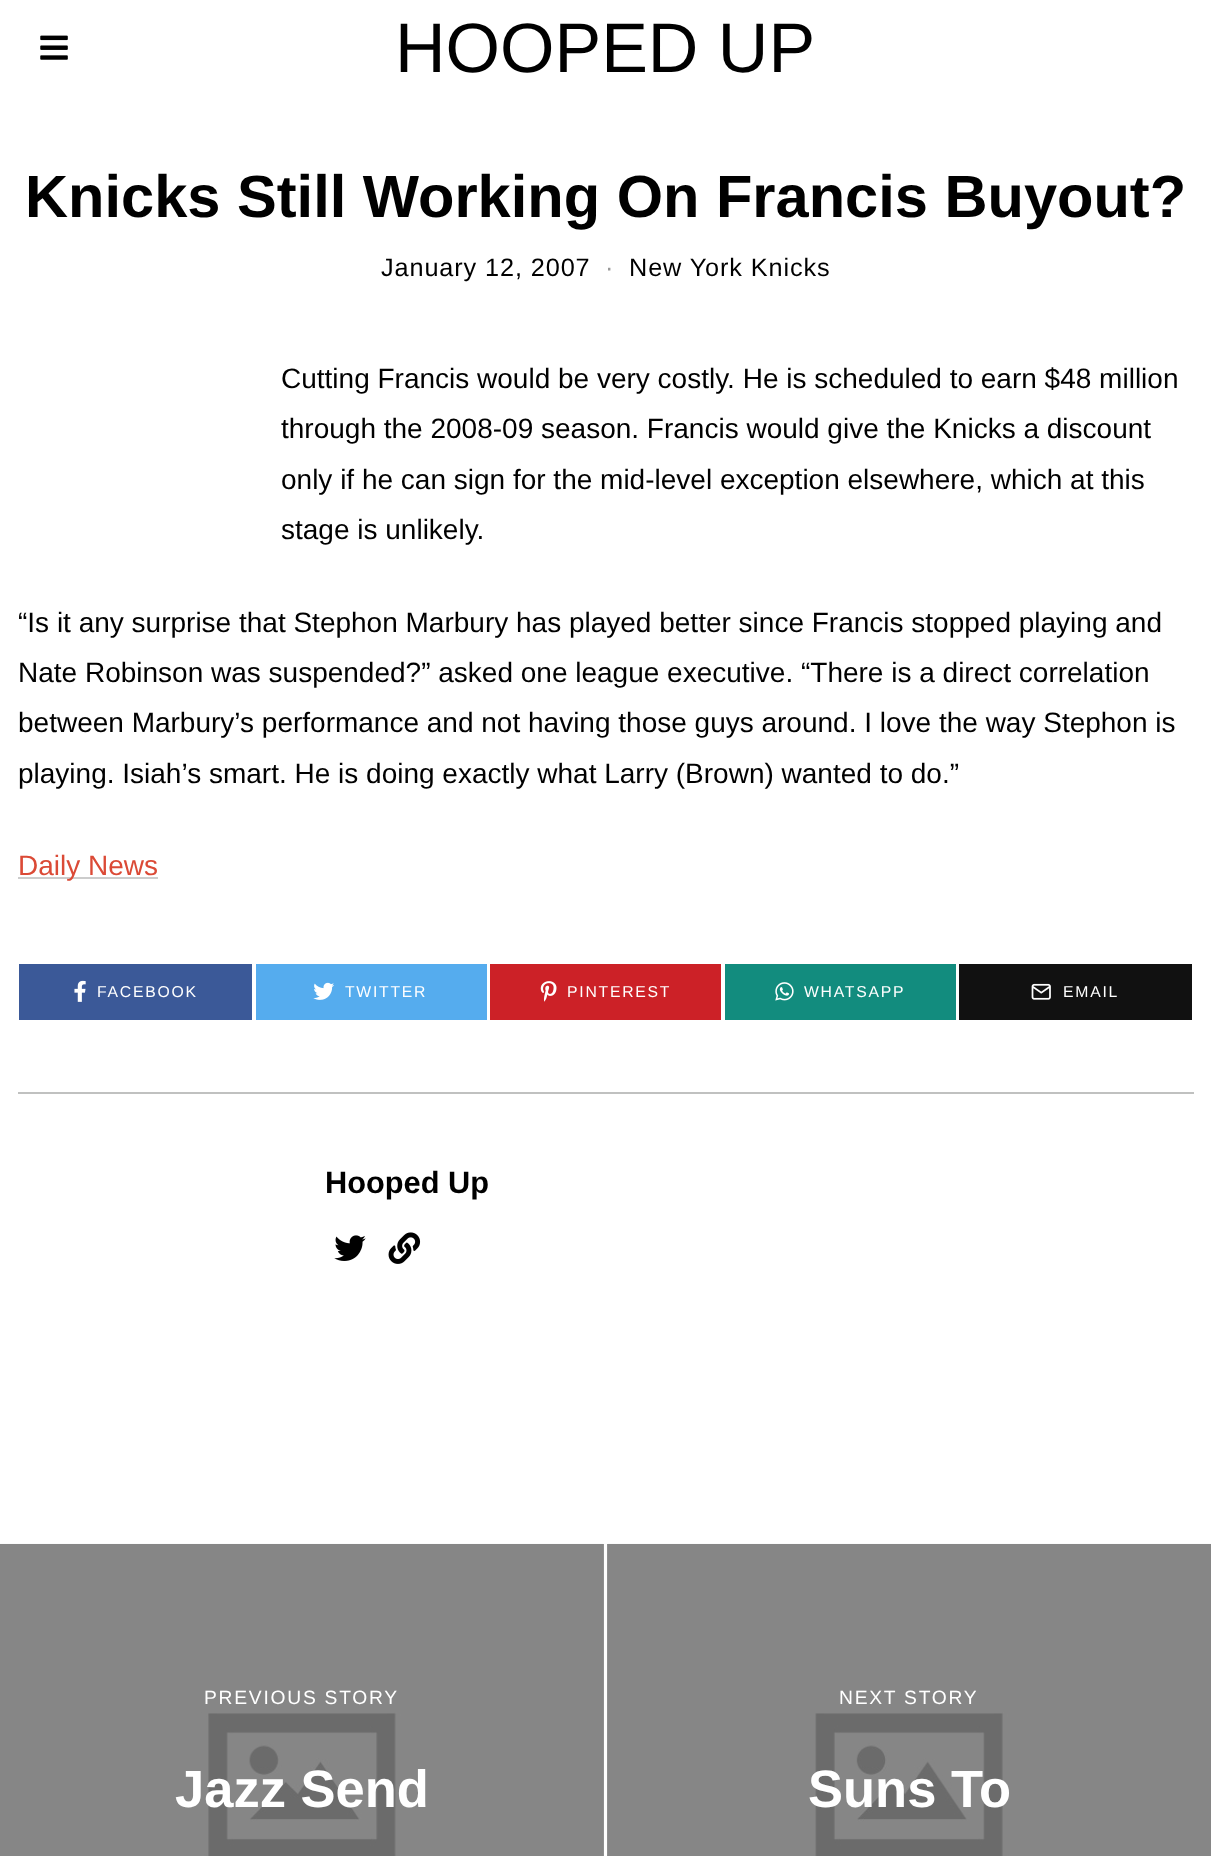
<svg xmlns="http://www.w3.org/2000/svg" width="1211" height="1856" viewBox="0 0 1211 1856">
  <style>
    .t1 { font: 70px Liberation Sans; fill: #000; }
    .t2 { font: bold 59.6px Liberation Sans; fill: #000; }
    .t3 { font: 25.25px Liberation Sans; letter-spacing: 0.9px; fill: #000; }
    .t4 { font: 25.25px Liberation Sans; letter-spacing: 0.9px; fill: #999; }
    .t5 { font: 28px Liberation Sans; fill: #000; }
    .t6 { font: 28px Liberation Sans; fill: #db4a36; }
    .t7 { font: 15.75px Liberation Sans; letter-spacing: 1.75px; fill: #fff; }
    .t8 { font: bold 30.75px Liberation Sans; fill: #000; }
    .t9 { font: 19.25px Liberation Sans; letter-spacing: 1.75px; fill: #fff; }
    .t10 { font: bold 52.5px Liberation Sans; fill: #fff; }
  </style>
  <rect width="100%" height="100%" fill="#fff"/>
  <rect x="607" y="1544" width="1" height="312" fill="#999"/>
  <rect x="603" y="1544" width="1" height="312" fill="#999"/>
  <image x="40" y="35" width="28" height="25" href="images/1.png"/>
  <text x="395" y="72" class="t1">HOOPED UP</text>
  <text x="25" y="217" class="t2">Knicks Still Working On Francis Buyout?</text>
  <text x="381" y="276" class="t3">January 12, 2007</text>
  <text x="605" y="276" class="t4">·</text>
  <text x="629" y="276" class="t3">New York Knicks</text>
  <text x="281" y="388" class="t5">Cutting Francis would be very costly. He is scheduled to earn $48 million</text>
  <text x="281" y="438" class="t5">through the 2008-09 season. Francis would give the Knicks a discount</text>
  <text x="281" y="489" class="t5">only if he can sign for the mid-level exception elsewhere, which at this</text>
  <text x="281" y="539" class="t5">stage is unlikely.</text>
  <text x="18" y="632" class="t5">“Is it any surprise that Stephon Marbury has played better since Francis stopped playing and</text>
  <text x="18" y="682" class="t5">Nate Robinson was suspended?” asked one league executive. “There is a direct correlation</text>
  <text x="18" y="732" class="t5">between Marbury’s performance and not having those guys around. I love the way Stephon is</text>
  <text x="18" y="783" class="t5">playing. Isiah’s smart. He is doing exactly what Larry (Brown) wanted to do.”</text>
  <rect x="18" y="877" width="140" height="2" fill="#ccc"/>
  <text x="18" y="875" class="t6">Daily News</text>
  <rect x="19" y="964" width="233" height="56" fill="#3b5998"/>
  <image x="74" y="980" width="12" height="22" href="images/2.png"/>
  <text x="97" y="997" class="t7">FACEBOOK</text>
  <rect x="256" y="964" width="231" height="56" fill="#55acee"/>
  <image x="313" y="982" width="21" height="18" href="images/3.png"/>
  <text x="345" y="997" class="t7">TWITTER</text>
  <rect x="490" y="964" width="231" height="56" fill="#cc2127"/>
  <image x="540" y="981" width="17" height="21" href="images/4.png"/>
  <text x="567" y="997" class="t7">PINTEREST</text>
  <rect x="725" y="964" width="231" height="56" fill="#128c7e"/>
  <image x="775" y="982" width="19" height="19" href="images/5.png"/>
  <text x="804" y="997" class="t7">WHATSAPP</text>
  <rect x="959" y="964" width="233" height="56" fill="#111"/>
  <image x="1031" y="983" width="20" height="17" href="images/6.png"/>
  <text x="1063" y="997" class="t7">EMAIL</text>
  <rect x="18" y="1092" width="1176" height="2" fill="#c0c1c0"/>
  <text x="325" y="1193" class="t8">Hooped Up</text>
  <image x="334" y="1235" width="32" height="26" href="images/7.png"/>
  <image x="388" y="1232" width="33" height="32" href="images/8.png"/>
  <image x="0" y="1543" width="604" height="313" href="images/9.png"/>
  <text x="204" y="1704" class="t9">PREVIOUS STORY</text>
  <text x="175" y="1807" class="t10">Jazz Send</text>
  <image x="607" y="1543" width="604" height="313" href="images/10.png"/>
  <text x="839" y="1704" class="t9">NEXT STORY</text>
  <text x="808" y="1807" class="t10">Suns To</text>
</svg>
